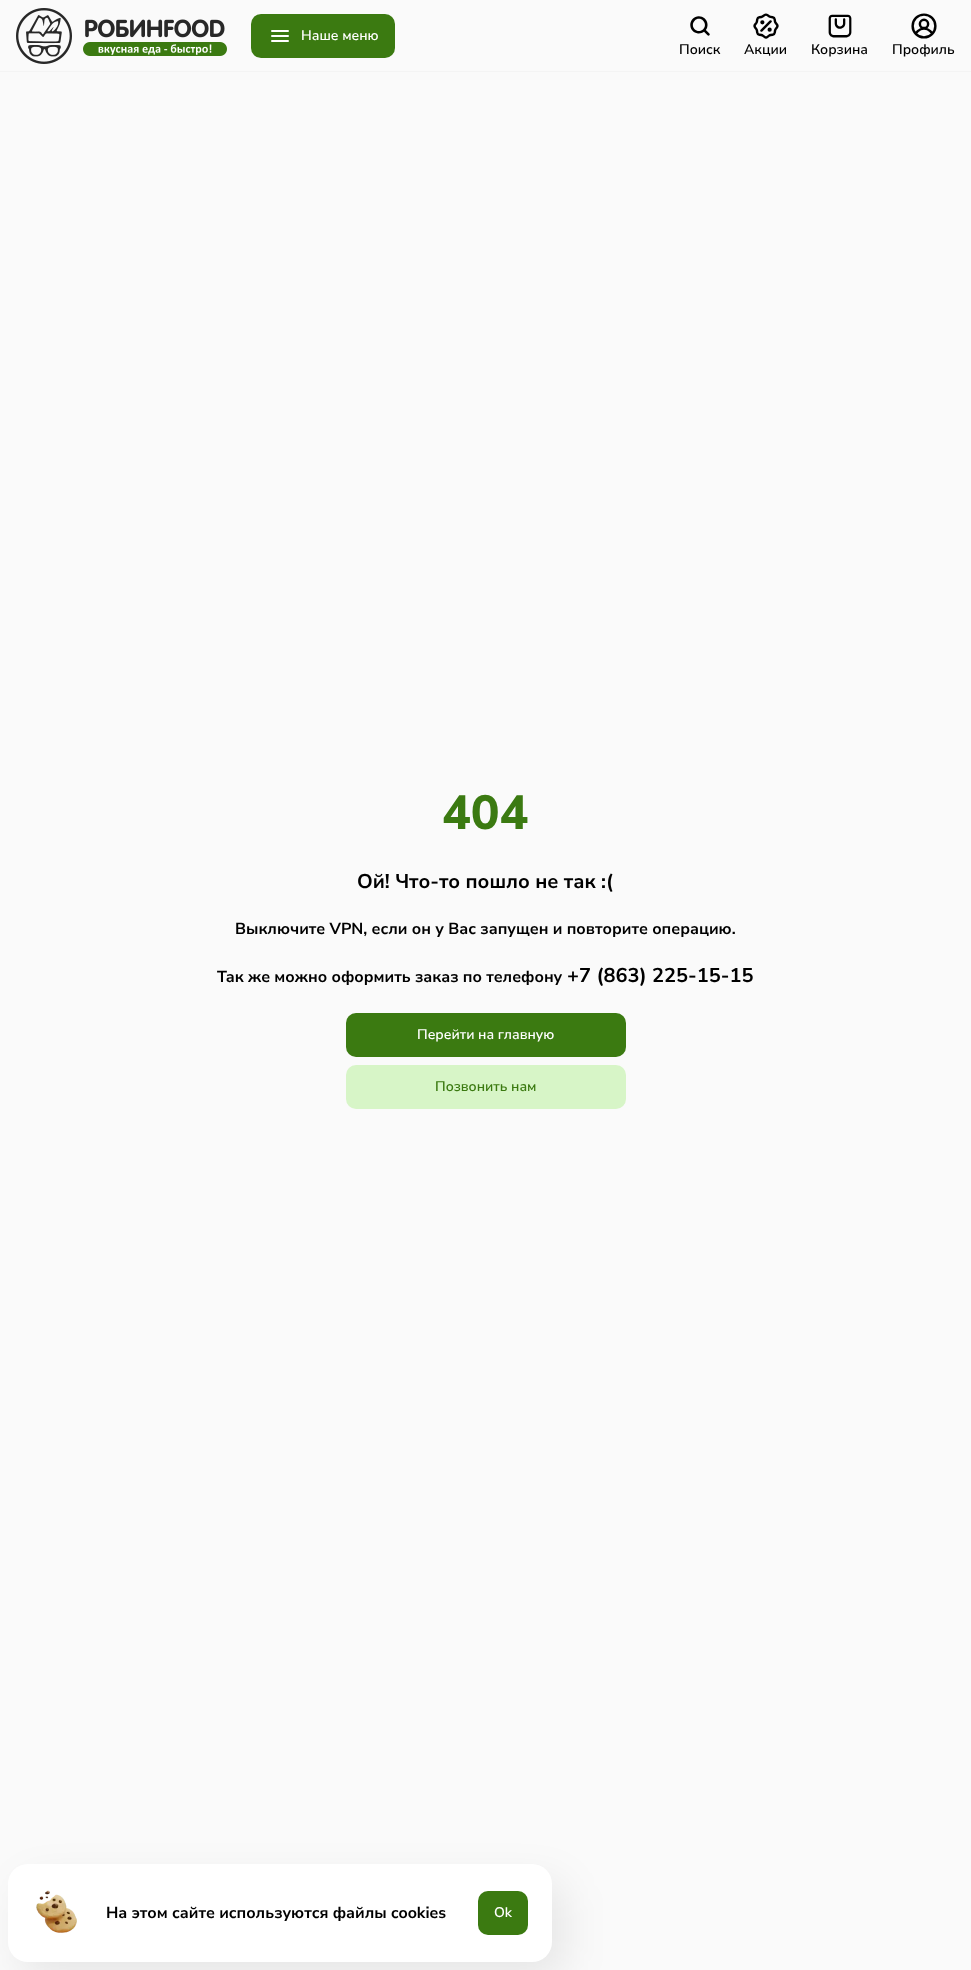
<svg xmlns="http://www.w3.org/2000/svg" width="971" height="1970" viewBox="0 0 971 1970">
  <style>
    .t1 { font: 600 14px Nunito Sans; fill: #fff; }
    .t2 { font: 600 14px Nunito Sans; fill: #000; }
    .t3 { font: 800 48px Nunito Sans; fill: #3b7a11; }
    .t4 { font: bold 20px Nunito Sans; fill: #000; }
    .t5 { font: bold 16px Nunito Sans; fill: #000; }
    .t6 { font: 600 14px Nunito Sans; fill: #3b7a11; }
  </style>
  <rect width="100%" height="100%" fill="#fafafa"/>
  <rect x="0" y="71" width="971" height="1" fill="#f4f4f4"/>
  <image x="16" y="8" width="211" height="56" href="images/1.png"/>
  <rect x="251" y="14" width="144" height="44" rx="10" fill="#3b7a11"/>
  <rect x="271" y="30" width="18" height="2" rx="1" fill="#fff"/>
  <rect x="271" y="35" width="18" height="2" rx="1" fill="#fff"/>
  <rect x="271" y="40" width="18" height="2" rx="1" fill="#fff"/>
  <text x="301" y="40" class="t1">Наше меню</text>
  <image x="690" y="16" width="20" height="20" href="images/2.png"/>
  <text x="679" y="54" class="t2">Поиск</text>
  <image x="753" y="13" width="26" height="26" href="images/3.png"/>
  <text x="744" y="54" class="t2">Акции</text>
  <image x="828" y="14" width="24" height="24" href="images/4.png"/>
  <text x="811" y="54" class="t2">Корзина</text>
  <image x="911" y="13" width="26" height="26" href="images/5.png"/>
  <text x="892" y="54" class="t2">Профиль</text>
  <text x="442" y="829" class="t3">404</text>
  <text x="357" y="888" class="t4">Ой! Что-то пошло не так :(</text>
  <text x="235" y="934" class="t5">Выключите VPN, если он у Вас запущен и повторите операцию.</text>
  <text x="217" y="982" class="t5">Так же можно оформить заказ по телефону</text>
  <text x="567" y="982" class="t4">+7 (863) 225-15-15</text>
  <rect x="346" y="1013" width="280" height="44" rx="10" fill="#3b7a11"/>
  <text x="417" y="1039" class="t1">Перейти на главную</text>
  <rect x="346" y="1065" width="280" height="44" rx="10" fill="#d7f5c7"/>
  <text x="435" y="1091" class="t6">Позвонить нам</text>
  <rect x="21" y="1881" width="544" height="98" rx="20" fill="#00000014" filter="blur(21px)"/>
  <rect x="8" y="1864" width="544" height="98" rx="20" fill="#fff"/>
  <image x="36" y="1890" width="41" height="43" href="images/6.png"/>
  <text x="106" y="1918" class="t5">На этом сайте используются файлы cookies</text>
  <rect x="478" y="1891" width="50" height="44" rx="10" fill="#3b7a11"/>
  <text x="494" y="1917" class="t1">Оk</text>
</svg>
